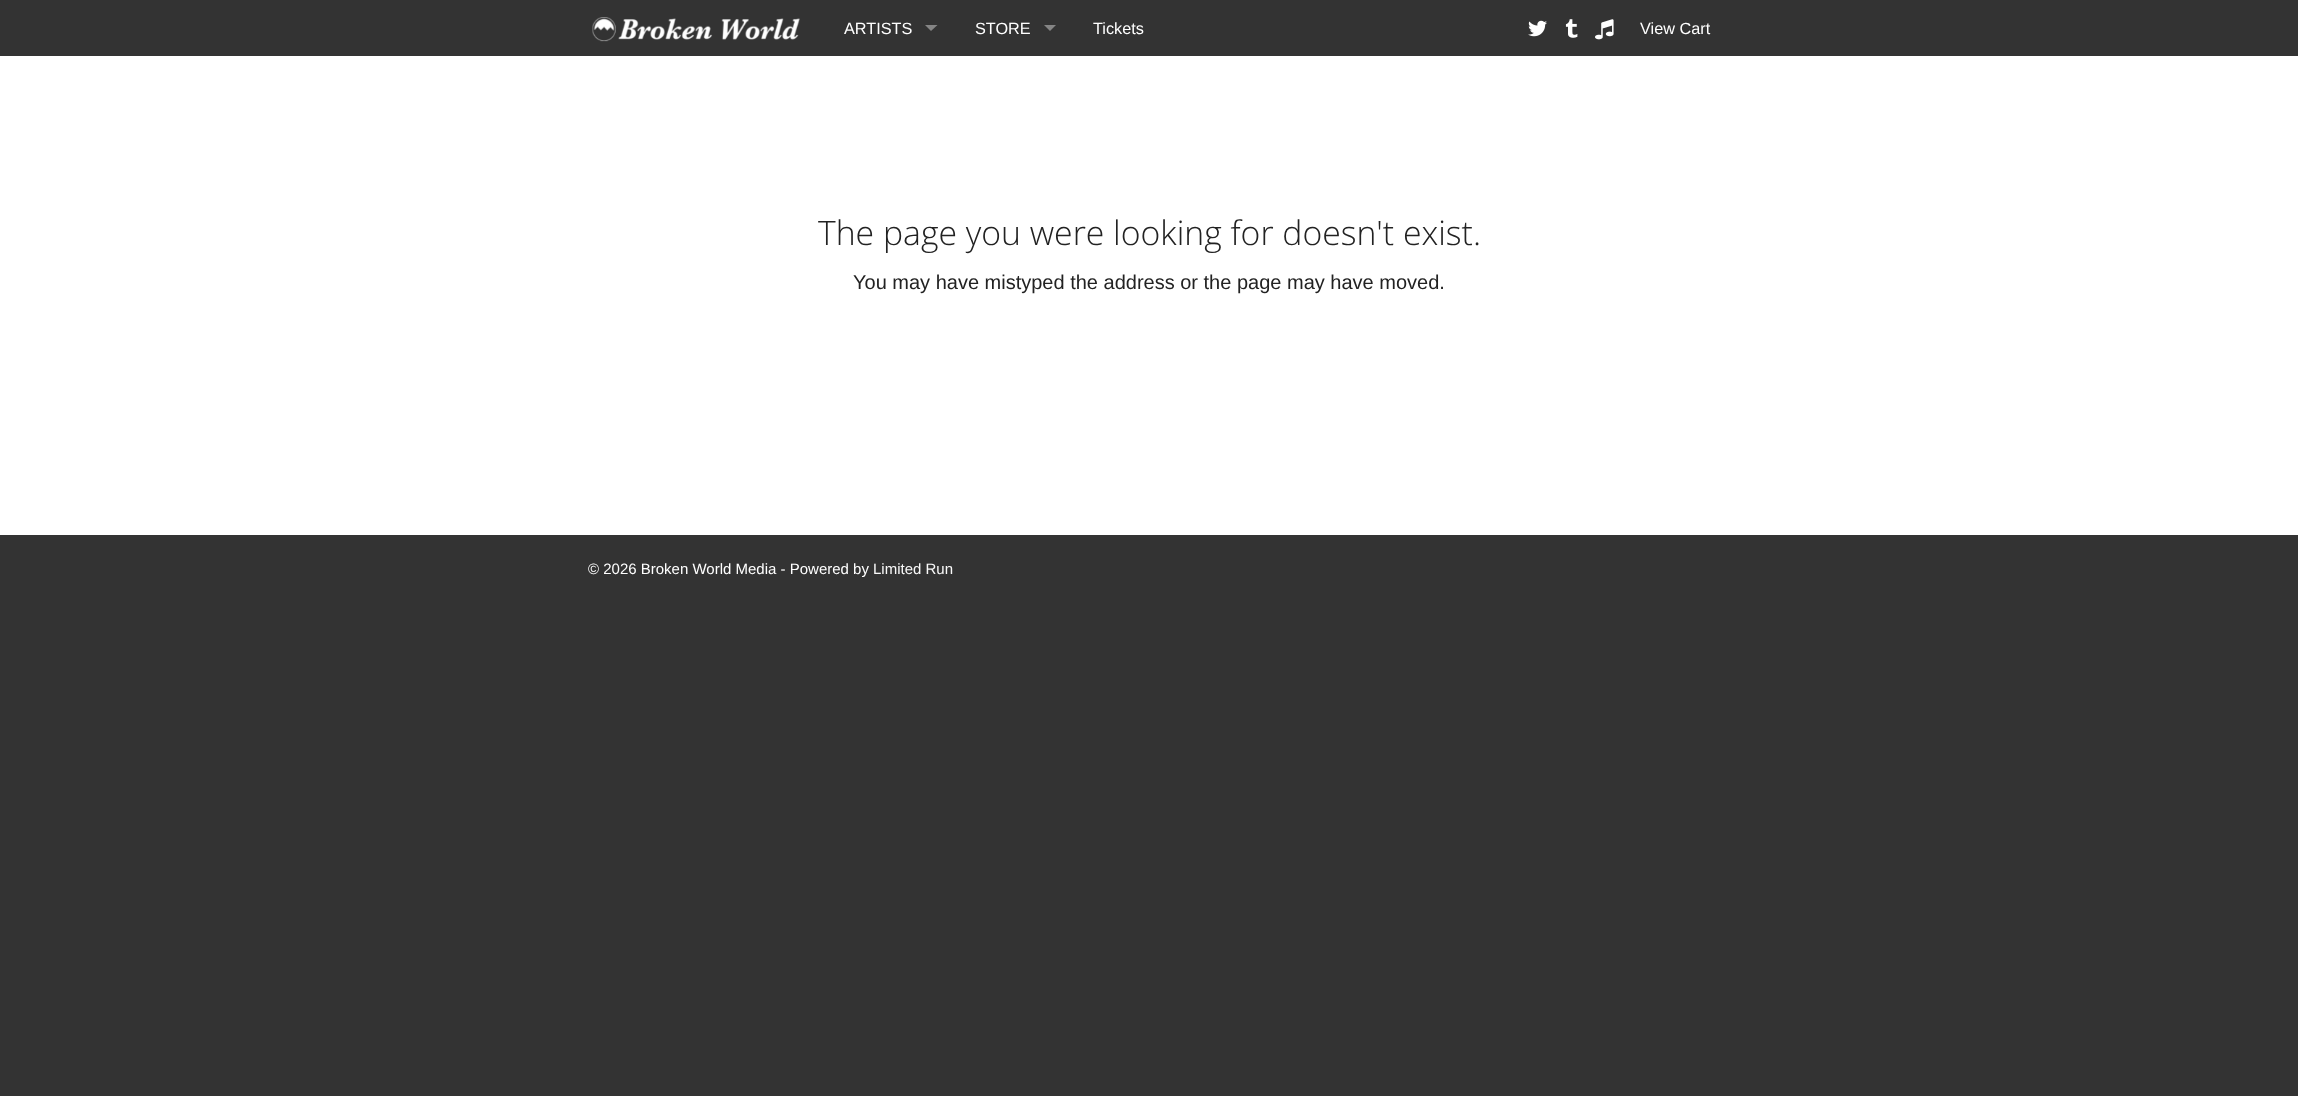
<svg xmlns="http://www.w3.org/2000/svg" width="2298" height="1096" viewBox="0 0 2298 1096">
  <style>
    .t1 { font: 16.25px Liberation Sans; fill: #fff; }
    .t2 { font: 300 33.75px Open Sans; fill: #222; }
    .t3 { font: 20px Liberation Sans; fill: #222; }
    .t4 { font: 15px Liberation Sans; fill: #fff; }
    .t5 { font: 15px Liberation Sans; fill: #f9f9f9; }
  </style>
  <rect width="100%" height="100%" fill="#333"/>
  <image x="592" y="17" width="208" height="25" href="images/1.png"/>
  <text x="844" y="34" class="t1">ARTISTS</text>
  <path d="M925 25H937.5L931 31Z" fill="#858585"/>
  <text x="975" y="34" class="t1">STORE</text>
  <path d="M1044 25H1056L1050 31Z" fill="#858585"/>
  <text x="1093" y="34" class="t1">Tickets</text>
  <image x="1528" y="20" width="19" height="17" href="images/2.png"/>
  <image x="1565" y="19" width="13" height="19" href="images/3.png"/>
  <image x="1595" y="19" width="19" height="21" href="images/4.png"/>
  <text x="1640" y="34" class="t1">View Cart</text>
  <rect x="0" y="56" width="2298" height="479" fill="#fff"/>
  <text x="818" y="245" class="t2">The page you were looking for doesn't exist.</text>
  <text x="853" y="289" class="t3">You may have mistyped the address or the page may have moved.</text>
  <text x="588" y="574" class="t4">© 2026 Broken World Media - Powered by</text>
  <text x="873" y="574" class="t5">Limited Run</text>
</svg>
